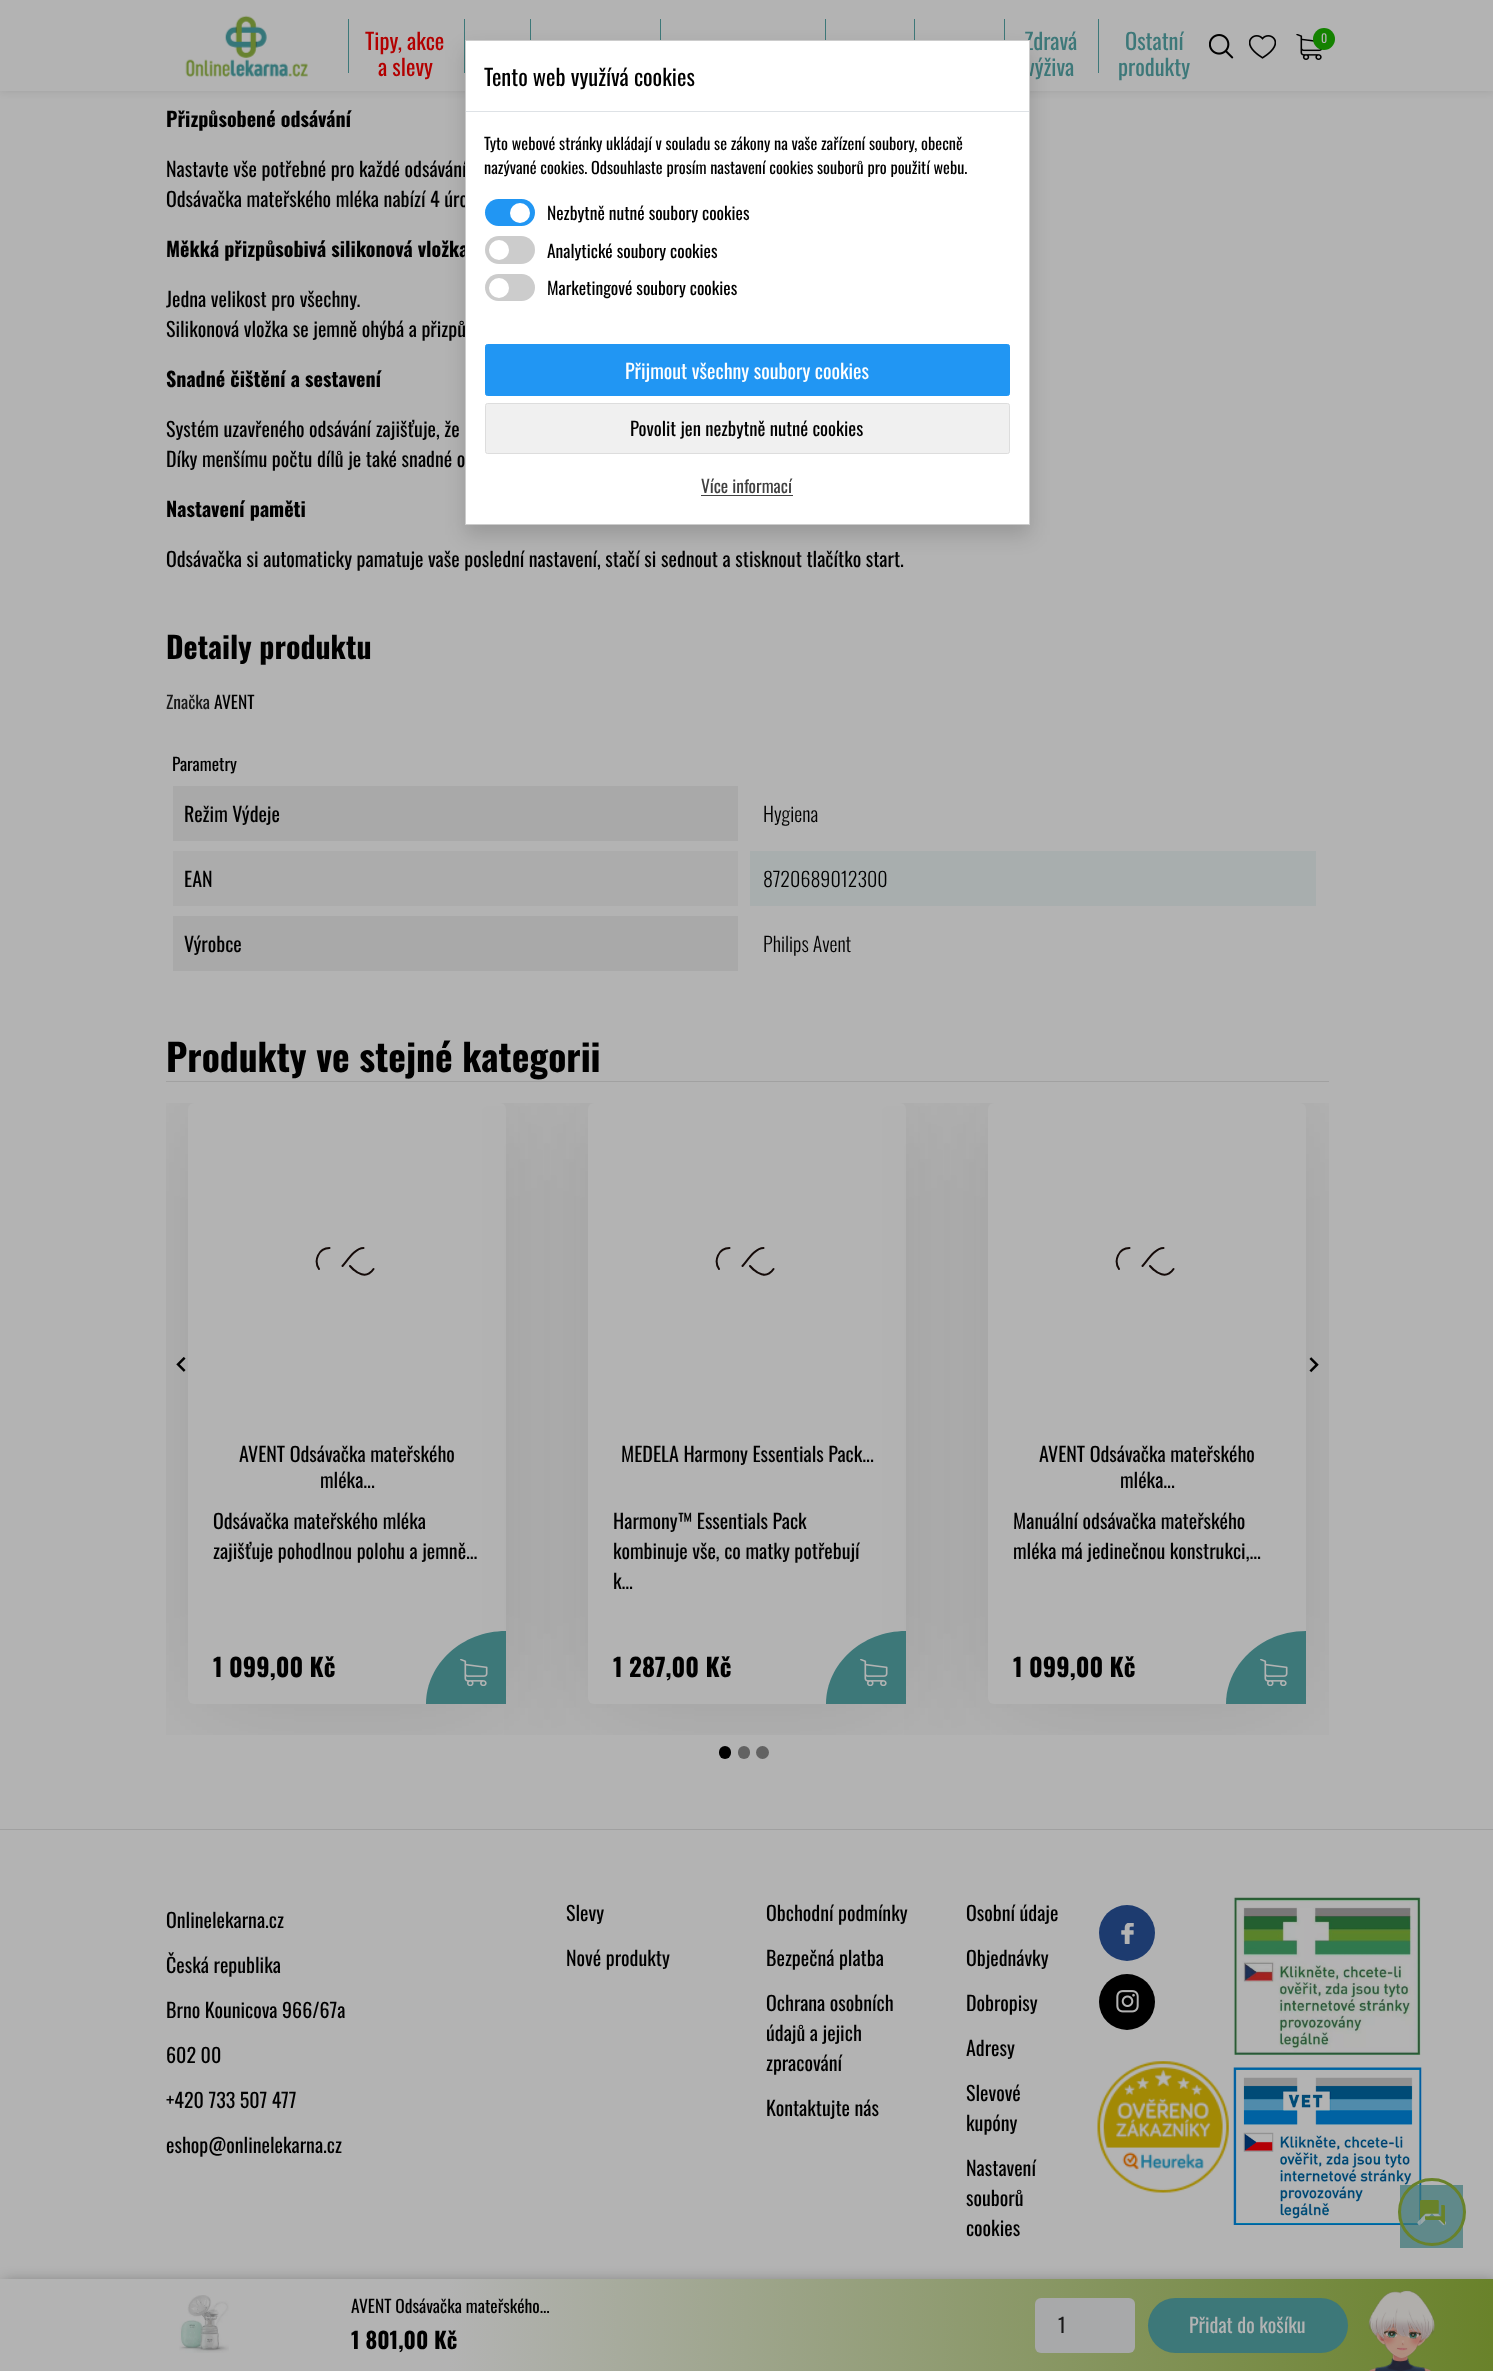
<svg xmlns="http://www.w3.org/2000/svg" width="1493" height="2371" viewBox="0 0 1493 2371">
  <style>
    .t1 { font: 22.5px Oswald; fill: #b30000; }
    .t2 { font: 22.5px Oswald; fill: #3d7879; }
    .t3 { font: 12px Oswald; fill: #b3b3b3; }
    .t4 { font: bold 20px Oswald; fill: #000; }
    .t5 { font: 20px Oswald; fill: #000; }
    .t6 { font: bold 30px Oswald; fill: #000; }
    .t7 { font: 17.5px Oswald; fill: #191919; }
    .t8 { font: 17.5px Oswald; fill: #000; }
    .t9 { font: 300 20px Oswald; fill: #000; }
    .t10 { font: bold 37.5px Oswald; fill: #000; }
    .t11 { font: bold 25px Oswald; fill: #000; }
    .t12 { font: bold 22.5px Oswald; fill: #000; }
    .t13 { font: 20px Oswald; fill: #191919; }
    .t14 { font: 20px Oswald; fill: #b3b3b3; }
    .t15 { font: 22.5px Oswald; fill: #000; }
    .t16 { font: 16.25px Oswald; fill: #000; }
    .t17 { font: 20px Oswald; fill: #fff; }
    .t18 { font: 18.75px Oswald; fill: #000; }
    .t19 { font: 17.5px Oswald; fill: #404040; }
  </style>
  <defs>
    <clipPath id="clip1"><rect x="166" y="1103" width="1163" height="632"/></clipPath>
    <linearGradient id="g1" gradientUnits="userSpaceOnUse" x1="0" y1="2325" x2="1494" y2="2325"><stop offset="0.3" stop-color="#b3b3b3"/><stop offset="1" stop-color="#69822a"/></linearGradient>
  </defs>
  <rect width="100%" height="100%" fill="#b3b3b3"/>
  <rect x="0" y="0" width="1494" height="91" fill="#0101011a" filter="blur(4px)"/>
  <rect x="0" y="0" width="1493" height="91" fill="#b3b3b3"/>
  <image x="185" y="15" width="123" height="62" href="images/1.png"/>
  <rect x="348" y="19" width="1" height="54" fill="#3d7879"/>
  <text x="365" y="50" class="t1">Tipy, akce</text>
  <text x="378" y="76" class="t1">a slevy</text>
  <rect x="464" y="19" width="1" height="54" fill="#3d7879"/>
  <rect x="530" y="19" width="1" height="21" fill="#3d7879"/>
  <rect x="660" y="19" width="1" height="21" fill="#3d7879"/>
  <rect x="825" y="19" width="1" height="21" fill="#3d7879"/>
  <rect x="914" y="19" width="1" height="21" fill="#3d7879"/>
  <rect x="1004" y="19" width="1" height="21" fill="#3d7879"/>
  <text x="1024" y="50" class="t2">Zdravá</text>
  <text x="1026" y="76" class="t2">výživa</text>
  <rect x="1098" y="19" width="1" height="54" fill="#3d7879"/>
  <text x="1125" y="50" class="t2">Ostatní</text>
  <text x="1118" y="76" class="t2">produkty</text>
  <image x="1209" y="34" width="25" height="25" href="images/2.png"/>
  <image x="1249" y="35" width="27" height="24" href="images/3.png"/>
  <image x="1296" y="34" width="27" height="26" href="images/4.png"/>
  <circle cx="1324" cy="39" r="11" fill="#148200"/>
  <text x="1321" y="43" class="t3">0</text>
  <text x="166" y="127" class="t4">Přizpůsobené odsávání</text>
  <text x="166" y="177" class="t5">Nastavte vše potřebné pro každé odsávání</text>
  <text x="166" y="207" class="t5">Odsávačka mateřského mléka nabízí 4 úro</text>
  <text x="166" y="257" class="t4">Měkká přizpůsobivá silikonová vložka</text>
  <text x="166" y="307" class="t5">Jedna velikost pro všechny.</text>
  <text x="166" y="337" class="t5">Silikonová vložka se jemně ohýbá a přizpů</text>
  <text x="166" y="387" class="t4">Snadné čištění a sestavení</text>
  <text x="166" y="437" class="t5">Systém uzavřeného odsávání zajišťuje, že</text>
  <text x="166" y="467" class="t5">Díky menšímu počtu dílů je také snadné o</text>
  <text x="166" y="517" class="t4">Nastavení paměti</text>
  <text x="166" y="567" class="t5">Odsávačka si automaticky pamatuje vaše poslední nastavení, stačí si sednout a stisknout tlačítko start.</text>
  <text x="166" y="659" class="t6">Detaily produktu</text>
  <text x="166" y="709" class="t7">Značka</text>
  <text x="214" y="709" class="t8">AVENT</text>
  <text x="172" y="771" class="t8">Parametry</text>
  <rect x="173" y="786" width="565" height="55" fill="#a9a9a9"/>
  <text x="184" y="822" class="t5">Režim Výdeje</text>
  <text x="763" y="822" class="t9">Hygiena</text>
  <rect x="173" y="851" width="565" height="55" fill="#acacac"/>
  <text x="184" y="887" class="t5">EAN</text>
  <rect x="750" y="851" width="566" height="55" fill="#a8aeae"/>
  <text x="763" y="887" class="t9">8720689012300</text>
  <rect x="173" y="916" width="565" height="55" fill="#a9a9a9"/>
  <text x="184" y="952" class="t5">Výrobce</text>
  <text x="763" y="952" class="t9">Philips Avent</text>
  <text x="166" y="1072" class="t10">Produkty ve stejné kategorii</text>
  <rect x="166" y="1081" width="1163" height="1" fill="#a1a1a1"/>
  <rect x="0" y="1829" width="1493" height="1" fill="#a0a0a0"/>
  <g clip-path="url(#clip1)">
    <rect x="188" y="1106" width="318" height="602" rx="6" fill="#0000001a" filter="blur(56px)"/>
  </g>
  <image x="176" y="1357" width="10" height="15" href="images/5.png"/>
  <rect x="188" y="1103" width="318" height="601" rx="6" fill="#b3b3b3"/>
  <rect x="719" y="1746" width="12" height="13" rx="6" fill="#000"/>
  <rect x="738" y="1746" width="12" height="13" rx="6" fill="#626262"/>
  <circle cx="762.5" cy="1752.5" r="6.5" fill="#626262"/>
  <g clip-path="url(#clip1)">
    <rect x="588" y="1106" width="318" height="602" rx="6" fill="#0000001a" filter="blur(56px)"/>
  </g>
  <rect x="588" y="1103" width="318" height="601" rx="6" fill="#b3b3b3"/>
  <g clip-path="url(#clip1)">
    <rect x="988" y="1106" width="318" height="602" rx="6" fill="#0000001a" filter="blur(56px)"/>
  </g>
  <image x="1309" y="1357" width="10" height="16" href="images/6.png"/>
  <path d="M329.5 1248C318.5 1248 313.5 1260.5 319 1269M342.5 1266C347.5 1260.5 355 1248 363.5 1248M373.5 1269C366.5 1279.5 356.5 1273.5 350 1266" fill="none" stroke="#140a08" stroke-width="2" stroke-linecap="round"/>
  <text x="239" y="1462" class="t5">AVENT Odsávačka mateřského</text>
  <text x="320" y="1488" class="t5">mléka...</text>
  <text x="213" y="1529" class="t5">Odsávačka mateřského mléka</text>
  <text x="213" y="1559" class="t5">zajišťuje pohodlnou polohu a jemně...</text>
  <text x="213" y="1677" class="t11">1 099,00 Kč</text>
  <path d="M506 1631V1704H426C426 1664 462 1631 506 1631Z" fill="#3d7879"/>
  <image x="460" y="1659" width="28" height="27" href="images/7.png"/>
  <path d="M729.5 1248C718.5 1248 713.5 1260.5 719 1269M742.5 1266C747.5 1260.5 755 1248 763.5 1248M773.5 1269C766.5 1279.5 756.5 1273.5 750 1266" fill="none" stroke="#140a08" stroke-width="2" stroke-linecap="round"/>
  <text x="621" y="1462" class="t5">MEDELA Harmony Essentials Pack...</text>
  <text x="613" y="1529" class="t5">Harmony™ Essentials Pack</text>
  <text x="613" y="1559" class="t5">kombinuje vše, co matky potřebují</text>
  <text x="613" y="1589" class="t5">k...</text>
  <text x="613" y="1677" class="t11">1 287,00 Kč</text>
  <path d="M906 1631V1704H826C826 1664 862 1631 906 1631Z" fill="#3d7879"/>
  <image x="860" y="1659" width="28" height="27" href="images/7.png"/>
  <rect x="988" y="1103" width="318" height="601" rx="6" fill="#b3b3b3"/>
  <path d="M1129.5 1248C1118.5 1248 1113.5 1260.5 1119 1269M1142.5 1266C1147.5 1260.5 1155 1248 1163.5 1248M1173.5 1269C1166.5 1279.5 1156.5 1273.5 1150 1266" fill="none" stroke="#140a08" stroke-width="2" stroke-linecap="round"/>
  <text x="1039" y="1462" class="t5">AVENT Odsávačka mateřského</text>
  <text x="1120" y="1488" class="t5">mléka...</text>
  <text x="1013" y="1529" class="t5">Manuální odsávačka mateřského</text>
  <text x="1013" y="1559" class="t5">mléka má jedinečnou konstrukci,...</text>
  <text x="1013" y="1677" class="t11">1 099,00 Kč</text>
  <path d="M1306 1631V1704H1226C1226 1664 1262 1631 1306 1631Z" fill="#3d7879"/>
  <image x="1260" y="1659" width="28" height="27" href="images/7.png"/>
  <rect x="3" y="2281" width="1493" height="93" fill="#0000004d" filter="blur(7px)"/>
  <rect x="0" y="2279" width="1493" height="92" fill="url(#g1)"/>
  <image x="179" y="2295" width="50" height="58" href="images/8.png"/>
  <text x="351" y="2313" class="t8">AVENT Odsávačka mateřského...</text>
  <text x="351" y="2349" class="t12">1 801,00 Kč</text>
  <rect x="1035" y="2298" width="100" height="55" rx="6" fill="#a8a9aa"/>
  <text x="1058" y="2333" class="t13">1</text>
  <rect x="1148" y="2298" width="200" height="55" rx="27.5" fill="#3d7879"/>
  <text x="1189" y="2333" class="t14">Přidat do košíku</text>
  <text x="166" y="1928" class="t5">Onlinelekarna.cz</text>
  <text x="166" y="1973" class="t5">Česká republika</text>
  <text x="166" y="2018" class="t5">Brno Kounicova 966/67a</text>
  <text x="166" y="2063" class="t5">602 00</text>
  <text x="166" y="2108" class="t5">+420 733 507 477</text>
  <text x="166" y="2153" class="t5">eshop@onlinelekarna.cz</text>
  <text x="566" y="1921" class="t5">Slevy</text>
  <text x="566" y="1966" class="t5">Nové produkty</text>
  <text x="766" y="1921" class="t5">Obchodní podmínky</text>
  <text x="766" y="1966" class="t5">Bezpečná platba</text>
  <text x="766" y="2011" class="t5">Ochrana osobních</text>
  <text x="766" y="2041" class="t5">údajů a jejich</text>
  <text x="766" y="2071" class="t5">zpracování</text>
  <text x="766" y="2116" class="t5">Kontaktujte nás</text>
  <text x="966" y="1921" class="t5">Osobní údaje</text>
  <text x="966" y="1966" class="t5">Objednávky</text>
  <text x="966" y="2011" class="t5">Dobropisy</text>
  <text x="966" y="2056" class="t5">Adresy</text>
  <text x="966" y="2101" class="t5">Slevové</text>
  <text x="966" y="2131" class="t5">kupóny</text>
  <text x="966" y="2176" class="t5">Nastavení</text>
  <text x="966" y="2206" class="t5">souborů</text>
  <text x="966" y="2236" class="t5">cookies</text>
  <circle cx="1127" cy="1933" r="28" fill="#1d3b6f"/>
  <image x="1121" y="1923" width="13" height="21" href="images/9.png"/>
  <circle cx="1127" cy="2002" r="28" fill="#000"/>
  <image x="1116" y="1990" width="23" height="23" href="images/10.png"/>
  <image x="1097" y="2061" width="132" height="132" href="images/11.png"/>
  <image x="1233" y="1897" width="188" height="158" href="images/12.png"/>
  <image x="1233" y="2067" width="189" height="158" href="images/13.png"/>
  <rect x="1400" y="2185" width="63" height="63" fill="#3d7879b3"/>
  <path d="M1419.5 2223L1432 2210.5L1444 2223" fill="none" stroke="#b3b3b3b3" stroke-width="4.1" stroke-linecap="round" stroke-linejoin="round"/>
  <circle cx="1432" cy="2212" r="32.5" fill="none" stroke="#69822a" stroke-width="3"/>
  <image x="1420" y="2200" width="25" height="25" href="images/14.png"/>
  <image x="1368" y="2290" width="67" height="81" href="images/15.png"/>
  <rect x="465" y="50" width="565" height="485" fill="#00000026" filter="blur(10px)"/>
  <rect x="465.5" y="40.5" width="564" height="484" fill="#fff" stroke="#ccc"/>
  <rect x="466" y="111" width="563" height="1" fill="#dee2e6"/>
  <text x="484" y="86" class="t15">Tento web využívá cookies</text>
  <text x="484" y="150" class="t16">Tyto webové stránky ukládají v souladu se zákony na vaše zařízení soubory, obecně</text>
  <text x="484" y="174" class="t16">nazývané cookies. Odsouhlaste prosím nastavení cookies souborů pro použití webu.</text>
  <rect x="485" y="199" width="50" height="27" rx="13.5" fill="#2196f3"/>
  <circle cx="520" cy="213" r="10" fill="#fff"/>
  <text x="547" y="220" class="t8">Nezbytně nutné soubory cookies</text>
  <rect x="485" y="236" width="50" height="28" rx="14" fill="#ccc"/>
  <circle cx="499" cy="250" r="10" fill="#fff"/>
  <text x="547" y="258" class="t8">Analytické soubory cookies</text>
  <rect x="485" y="274" width="50" height="27" rx="13.5" fill="#ccc"/>
  <circle cx="499" cy="288" r="10" fill="#fff"/>
  <text x="547" y="295" class="t8">Marketingové soubory cookies</text>
  <rect x="485.5" y="344.5" width="524" height="51" rx="2" fill="#2196f3" stroke="#2196f3"/>
  <text x="625" y="379" class="t17">Přijmout všechny soubory cookies</text>
  <rect x="485.5" y="403.5" width="524" height="50" rx="2" fill="#f0f0f0" stroke="#ddd"/>
  <text x="630" y="436" class="t18">Povolit jen nezbytně nutné cookies</text>
  <text x="701" y="493" class="t19">Více informací</text>
  <rect x="701" y="495" width="92" height="1" fill="#404040"/>
</svg>
